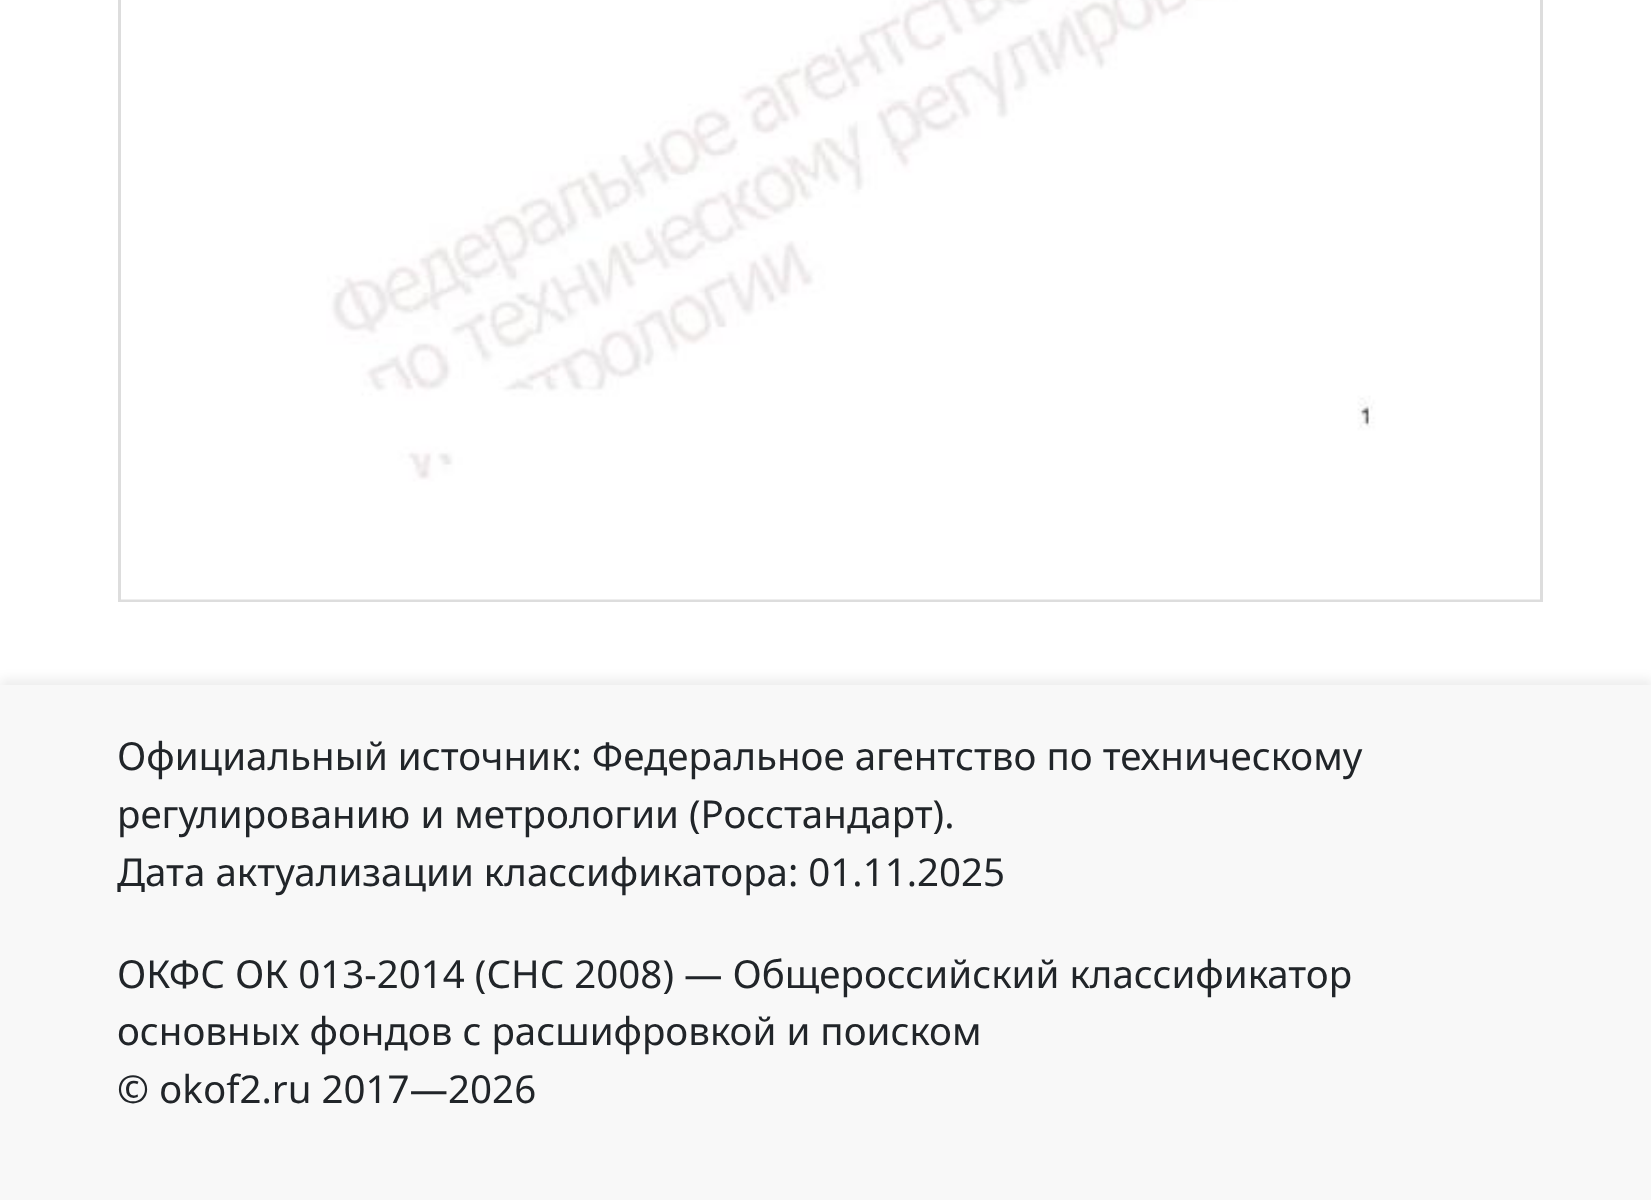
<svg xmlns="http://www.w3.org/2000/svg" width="1651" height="1200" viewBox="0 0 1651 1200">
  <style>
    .t1 { font: 38.5px Noto Sans; fill: #212529; }
  </style>
  <rect width="100%" height="100%" fill="#fff"/>
  <rect x="119.5" y="-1.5" width="1422" height="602" fill="none" stroke="#ddd" stroke-width="3"/>
  <image x="121" y="0" width="1419" height="600" href="images/1.png"/>
  <rect x="0" y="679" width="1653" height="517" fill="#00000012" filter="blur(5.5px)"/>
  <rect x="0" y="685" width="1651" height="515" fill="#f8f8f8"/>
  <text x="117" y="770" class="t1">Официальный источник: Федеральное агентство по техническому</text>
  <text x="117" y="828" class="t1">регулированию и метрологии (Росстандарт).</text>
  <text x="117" y="886" class="t1">Дата актуализации классификатора: 01.11.2025</text>
  <text x="117" y="988" class="t1">ОКФС ОК 013-2014 (СНС 2008) — Общероссийский классификатор</text>
  <text x="117" y="1045" class="t1">основных фондов с расшифровкой и поиском</text>
  <text x="117" y="1103" class="t1">© okof2.ru 2017—2026</text>
</svg>
